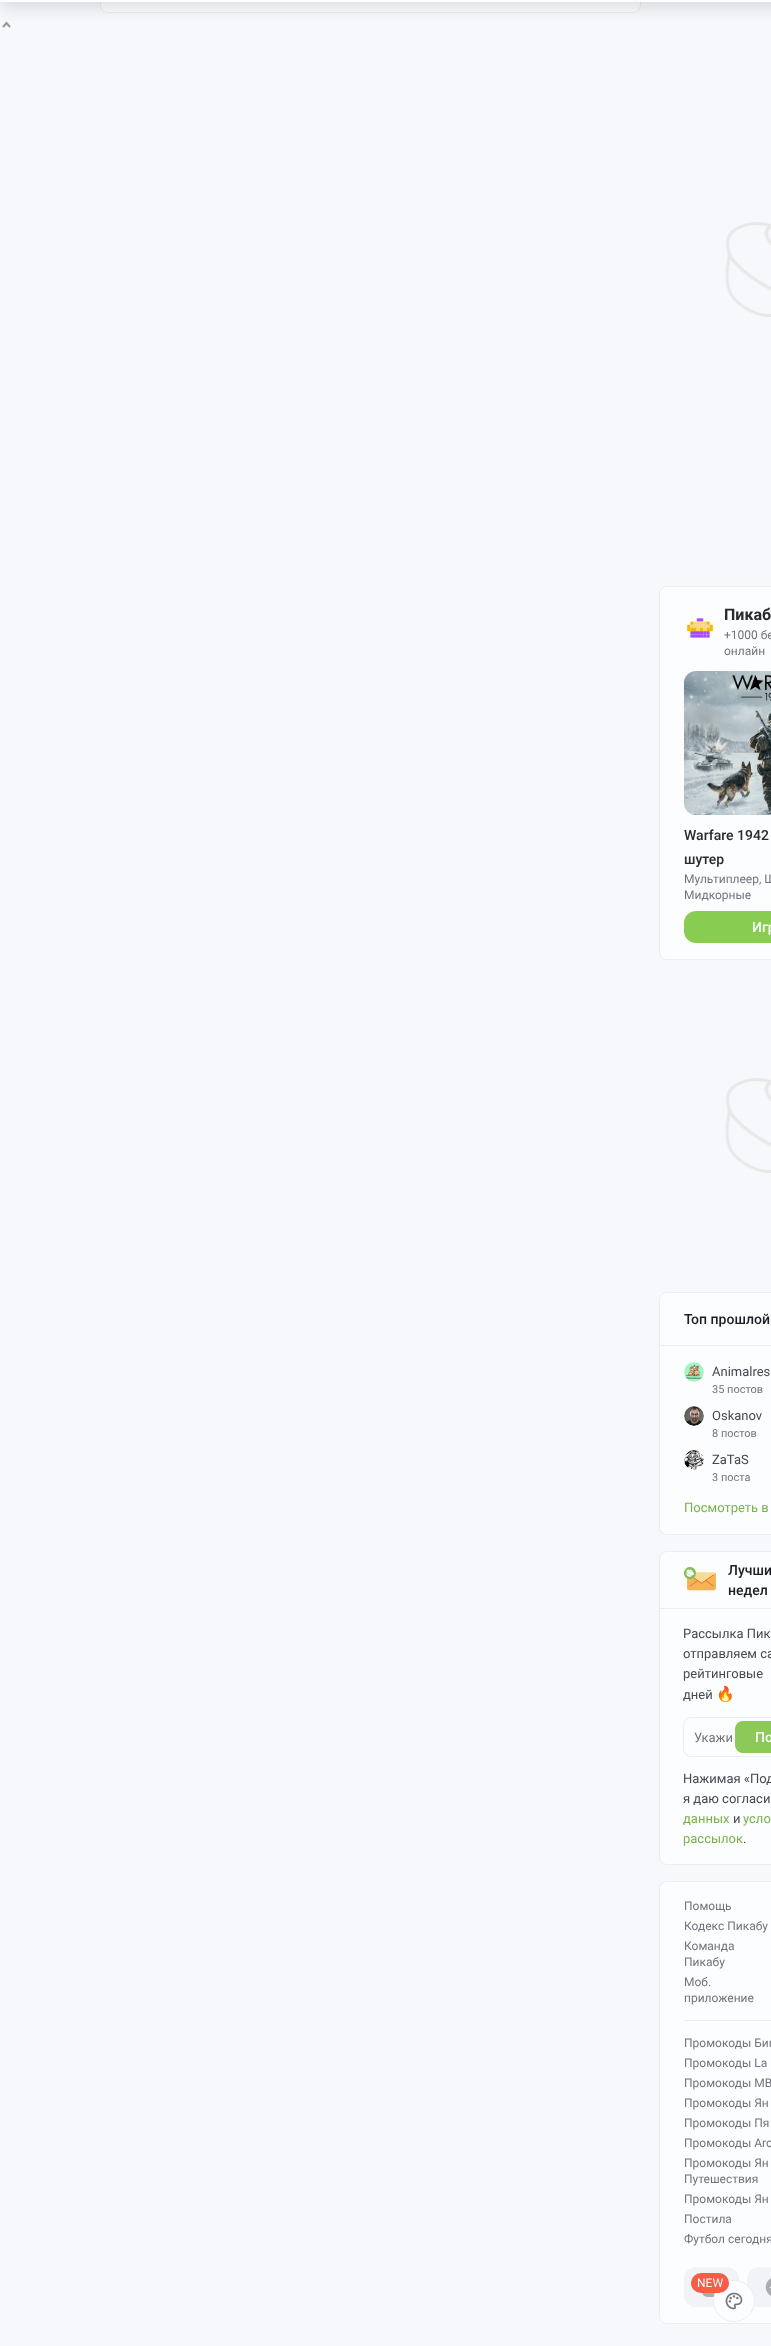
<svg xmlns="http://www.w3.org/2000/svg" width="771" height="2346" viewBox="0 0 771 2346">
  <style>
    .t1 { font: bold 16px Roboto; fill: #292a2e; }
    .t2 { font: 12px Roboto; fill: #70737b; }
    .t3 { font: 500 14px Roboto; fill: #292a2e; }
    .t4 { font: 500 14px Roboto; fill: #fcfdff; }
    .t5 { font: 500 14px Roboto; fill: #1b1e24; }
    .t6 { font: 13px Roboto; fill: #444850; }
    .t7 { font: 11px Roboto; fill: #70737b; }
    .t8 { font: 13px Roboto; fill: #78b247; }
    .t9 { font: 15px Noto Color Emoji; fill: #444850; }
    .t10 { font: 13px Roboto; fill: #70737b; }
    .t11 { font: 12px Roboto; fill: #fcfdff; }
  </style>
  <rect width="100%" height="100%" fill="#f7f8fc"/>
  <rect x="100.5" y="-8.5" width="540" height="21" rx="7.5" fill="#fcfdff" stroke="#ebedf2"/>
  <rect x="0" y="-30" width="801" height="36" fill="#00000014" filter="blur(10px)"/>
  <rect x="0" y="-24" width="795" height="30" fill="#292a2e14" filter="blur(8px)"/>
  <rect x="0" y="0" width="771" height="2" fill="#fcfdff"/>
  <path d="M3 27L6.5 23L10 27" fill="none" stroke="#979797" stroke-width="2"/>
  <image x="725" y="222" width="46" height="95" href="images/1.png"/>
  <rect x="659.5" y="586.5" width="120" height="373" rx="7.5" fill="#fcfdff" stroke="#ebedf2"/>
  <image x="687" y="618" width="26" height="20" href="images/2.png"/>
  <text x="724" y="620" class="t1">Пикаб</text>
  <text x="724" y="639" class="t2">+1000 бе</text>
  <text x="724" y="655" class="t2">онлайн</text>
  <image x="684" y="671" width="87" height="144" href="images/3.png"/>
  <text x="684" y="840" class="t3">Warfare 1942</text>
  <text x="684" y="864" class="t3">шутер</text>
  <text x="684" y="883" class="t2">Мультиплеер, Ш</text>
  <text x="684" y="899" class="t2">Мидкорные</text>
  <rect x="684" y="911" width="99" height="32" rx="12" fill="#89cc52"/>
  <text x="752" y="932" class="t4">Игр</text>
  <image x="725" y="1078" width="46" height="95" href="images/1.png"/>
  <rect x="659.5" y="1292.5" width="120" height="242" rx="7.5" fill="#fcfdff" stroke="#ebedf2"/>
  <rect x="660" y="1345" width="111" height="1" fill="#ebedf2"/>
  <text x="684" y="1324" class="t5">Топ прошлой</text>
  <circle cx="694" cy="1372" r="10" fill="#f9f9fb"/>
  <image x="684" y="1362" width="20" height="20" href="images/4.png"/>
  <text x="712" y="1376" class="t6">Animalres</text>
  <text x="712" y="1393" class="t7">35 постов</text>
  <circle cx="694" cy="1416" r="10" fill="#f9f9fb"/>
  <image x="684" y="1406" width="20" height="20" href="images/5.png"/>
  <text x="712" y="1420" class="t6">Oskanov</text>
  <text x="712" y="1437" class="t7">8 постов</text>
  <circle cx="694" cy="1460" r="10" fill="#f9f9fb"/>
  <image x="684" y="1450" width="20" height="20" href="images/6.png"/>
  <text x="712" y="1464" class="t6">ZaTaS</text>
  <text x="712" y="1481" class="t7">3 поста</text>
  <text x="684" y="1512" class="t8">Посмотреть в</text>
  <rect x="659.5" y="1551.5" width="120" height="313" rx="7.5" fill="#fcfdff" stroke="#ebedf2"/>
  <rect x="660" y="1608" width="111" height="1" fill="#ebedf2"/>
  <image x="684" y="1567" width="32" height="24" href="images/7.png"/>
  <text x="728" y="1575" class="t5">Лучши</text>
  <text x="728" y="1595" class="t5">недел</text>
  <text x="683" y="1638" class="t6">Рассылка Пик</text>
  <text x="683" y="1658" class="t6">отправляем са</text>
  <text x="683" y="1678" class="t6">рейтинговые</text>
  <text x="683" y="1699" class="t6">дней</text>
  <text x="716" y="1699" class="t9">🔥</text>
  <rect x="683.5" y="1717.5" width="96" height="39" rx="7.5" fill="none" stroke="#ebedf2"/>
  <text x="694" y="1742" class="t10">Укажи</text>
  <rect x="735" y="1721" width="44" height="32" rx="8" fill="#8bca58"/>
  <text x="755" y="1742" class="t4">По</text>
  <text x="683" y="1783" class="t6">Нажимая «Под</text>
  <text x="683" y="1803" class="t6">я даю согласи</text>
  <text x="683" y="1823" class="t8">данных</text>
  <text x="733" y="1823" class="t6">и</text>
  <text x="743" y="1823" class="t8">усло</text>
  <text x="683" y="1843" class="t8">рассылок</text>
  <text x="743" y="1843" class="t6">.</text>
  <rect x="659.5" y="1881.5" width="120" height="442" rx="7.5" fill="#fcfdff" stroke="#ebedf2"/>
  <text x="684" y="1910" class="t2">Помощь</text>
  <text x="684" y="1930" class="t2">Кодекс Пикабу</text>
  <text x="684" y="1950" class="t2">Команда</text>
  <text x="684" y="1966" class="t2">Пикабу</text>
  <text x="684" y="1986" class="t2">Моб.</text>
  <text x="684" y="2002" class="t2">приложение</text>
  <rect x="684" y="2020" width="87" height="1" fill="#ebedf2"/>
  <text x="684" y="2047" class="t2">Промокоды Биг</text>
  <text x="684" y="2067" class="t2">Промокоды La</text>
  <text x="684" y="2087" class="t2">Промокоды МВ</text>
  <text x="684" y="2107" class="t2">Промокоды Ян</text>
  <text x="684" y="2127" class="t2">Промокоды Пя</text>
  <text x="684" y="2147" class="t2">Промокоды Aro</text>
  <text x="684" y="2167" class="t2">Промокоды Ян</text>
  <text x="684" y="2183" class="t2">Путешествия</text>
  <text x="684" y="2203" class="t2">Промокоды Ян</text>
  <text x="684" y="2223" class="t2">Постила</text>
  <text x="684" y="2243" class="t2">Футбол сегодня</text>
  <rect x="684" y="2267" width="55" height="40" rx="12" fill="#f2f3f7"/>
  <image x="702" y="2293" width="13" height="4" href="images/8.png"/>
  <rect x="747" y="2267" width="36" height="40" rx="12" fill="#f2f3f7"/>
  <image x="765" y="2278" width="6" height="18" href="images/9.png"/>
  <circle cx="734" cy="2301" r="20.5" fill="#fcfdff" stroke="#ebedf2"/>
  <image x="725" y="2292" width="18" height="18" href="images/10.png"/>
  <rect x="691" y="2273" width="38" height="20" rx="10" fill="#f75c48"/>
  <text x="697" y="2287" class="t11">NEW</text>
</svg>
